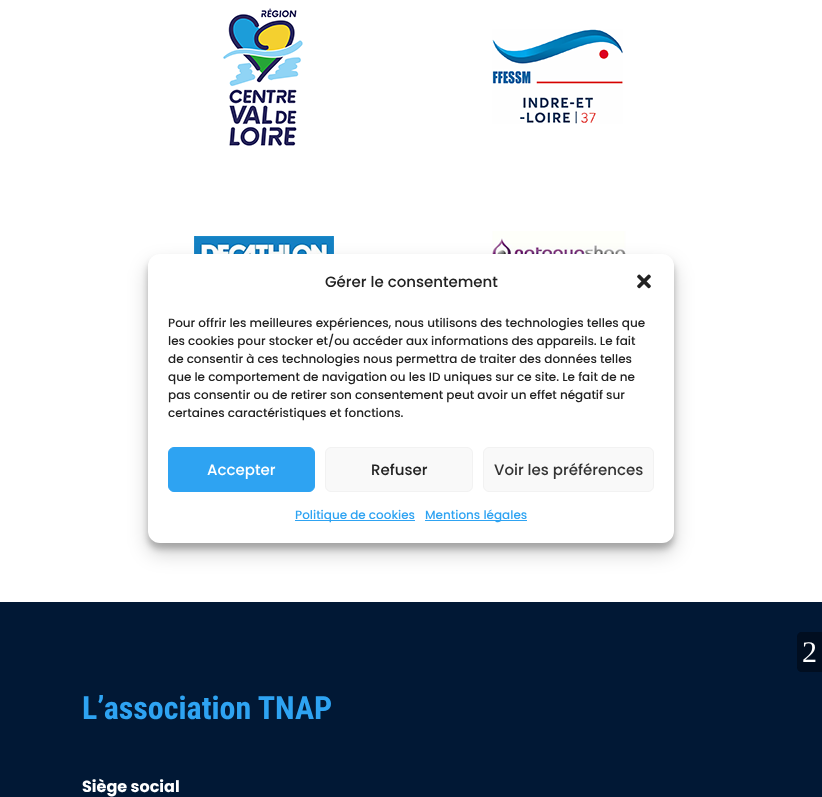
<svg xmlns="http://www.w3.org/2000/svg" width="822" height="797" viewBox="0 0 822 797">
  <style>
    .t1 { font: 500 15px Poppins; fill: #222; }
    .t2 { font: 500 12px Poppins; fill: #222; }
    .t3 { font: 500 15px Poppins; fill: #fff; }
    .t4 { font: 500 15px Poppins; fill: #333; }
    .t5 { font: 500 12px Poppins; fill: #2ea3f2; }
    .t6 { font: 30px Liberation Serif; fill: #fff; }
    .t7 { font: bold 32px Roboto Condensed; fill: #2ea3f2; }
    .t8 { font: bold 16px Poppins; fill: #fff; }
  </style>
  <rect width="100%" height="100%" fill="#fff"/>
  <image x="194" y="236" width="140" height="18" href="images/3.png"/>
  <image x="492" y="231" width="134" height="23" href="images/5.png"/>
  <rect x="148" y="260" width="526" height="289" rx="12" fill="#0000003b" filter="blur(3px)"/>
  <rect x="148" y="264" width="526" height="289" rx="12" fill="#00000030" filter="blur(10px)"/>
  <rect x="148" y="254" width="526" height="289" rx="12" fill="#fff"/>
  <text x="325" y="287" class="t1">Gérer le consentement</text>
  <image x="637" y="274" width="14" height="15" href="images/1.png"/>
  <text x="168" y="327" class="t2">Pour offrir les meilleures expériences, nous utilisons des technologies telles que</text>
  <text x="168" y="345" class="t2">les cookies pour stocker et/ou accéder aux informations des appareils. Le fait</text>
  <text x="168" y="363" class="t2">de consentir à ces technologies nous permettra de traiter des données telles</text>
  <text x="168" y="381" class="t2">que le comportement de navigation ou les ID uniques sur ce site. Le fait de ne</text>
  <text x="168" y="399" class="t2">pas consentir ou de retirer son consentement peut avoir un effet négatif sur</text>
  <text x="168" y="417" class="t2">certaines caractéristiques et fonctions.</text>
  <rect x="168.5" y="447.5" width="146" height="44" rx="5.5" fill="#2ea3f2" stroke="#2ea3f2"/>
  <text x="207" y="475" class="t3">Accepter</text>
  <rect x="325.5" y="447.5" width="147" height="44" rx="5.5" fill="#f9f9f9" stroke="#f2f2f2"/>
  <text x="371" y="475" class="t1">Refuser</text>
  <rect x="483.5" y="447.5" width="170" height="44" rx="5.5" fill="#f9f9f9" stroke="#f2f2f2"/>
  <text x="494" y="475" class="t4">Voir les préférences</text>
  <rect x="295" y="520" width="120" height="1" fill="#2ea3f2"/>
  <text x="295" y="519" class="t5">Politique de cookies</text>
  <rect x="425" y="520" width="102" height="1" fill="#2ea3f2"/>
  <text x="425" y="519" class="t5">Mentions légales</text>
  <rect x="0" y="602" width="822" height="195" fill="#011835"/>
  <path d="M802 632H822V672H802C799 672 797 670 797 667V637C797 634 799 632 802 632Z" fill="#010e20"/>
  <text x="802" y="662" class="t6">2</text>
  <image x="223" y="8" width="80" height="138" href="images/2.png"/>
  <image x="492" y="29" width="131" height="95" href="images/4.png"/>
  <text x="82" y="719" class="t7">L’association TNAP</text>
  <text x="82" y="792" class="t8">Siège social</text>
</svg>
